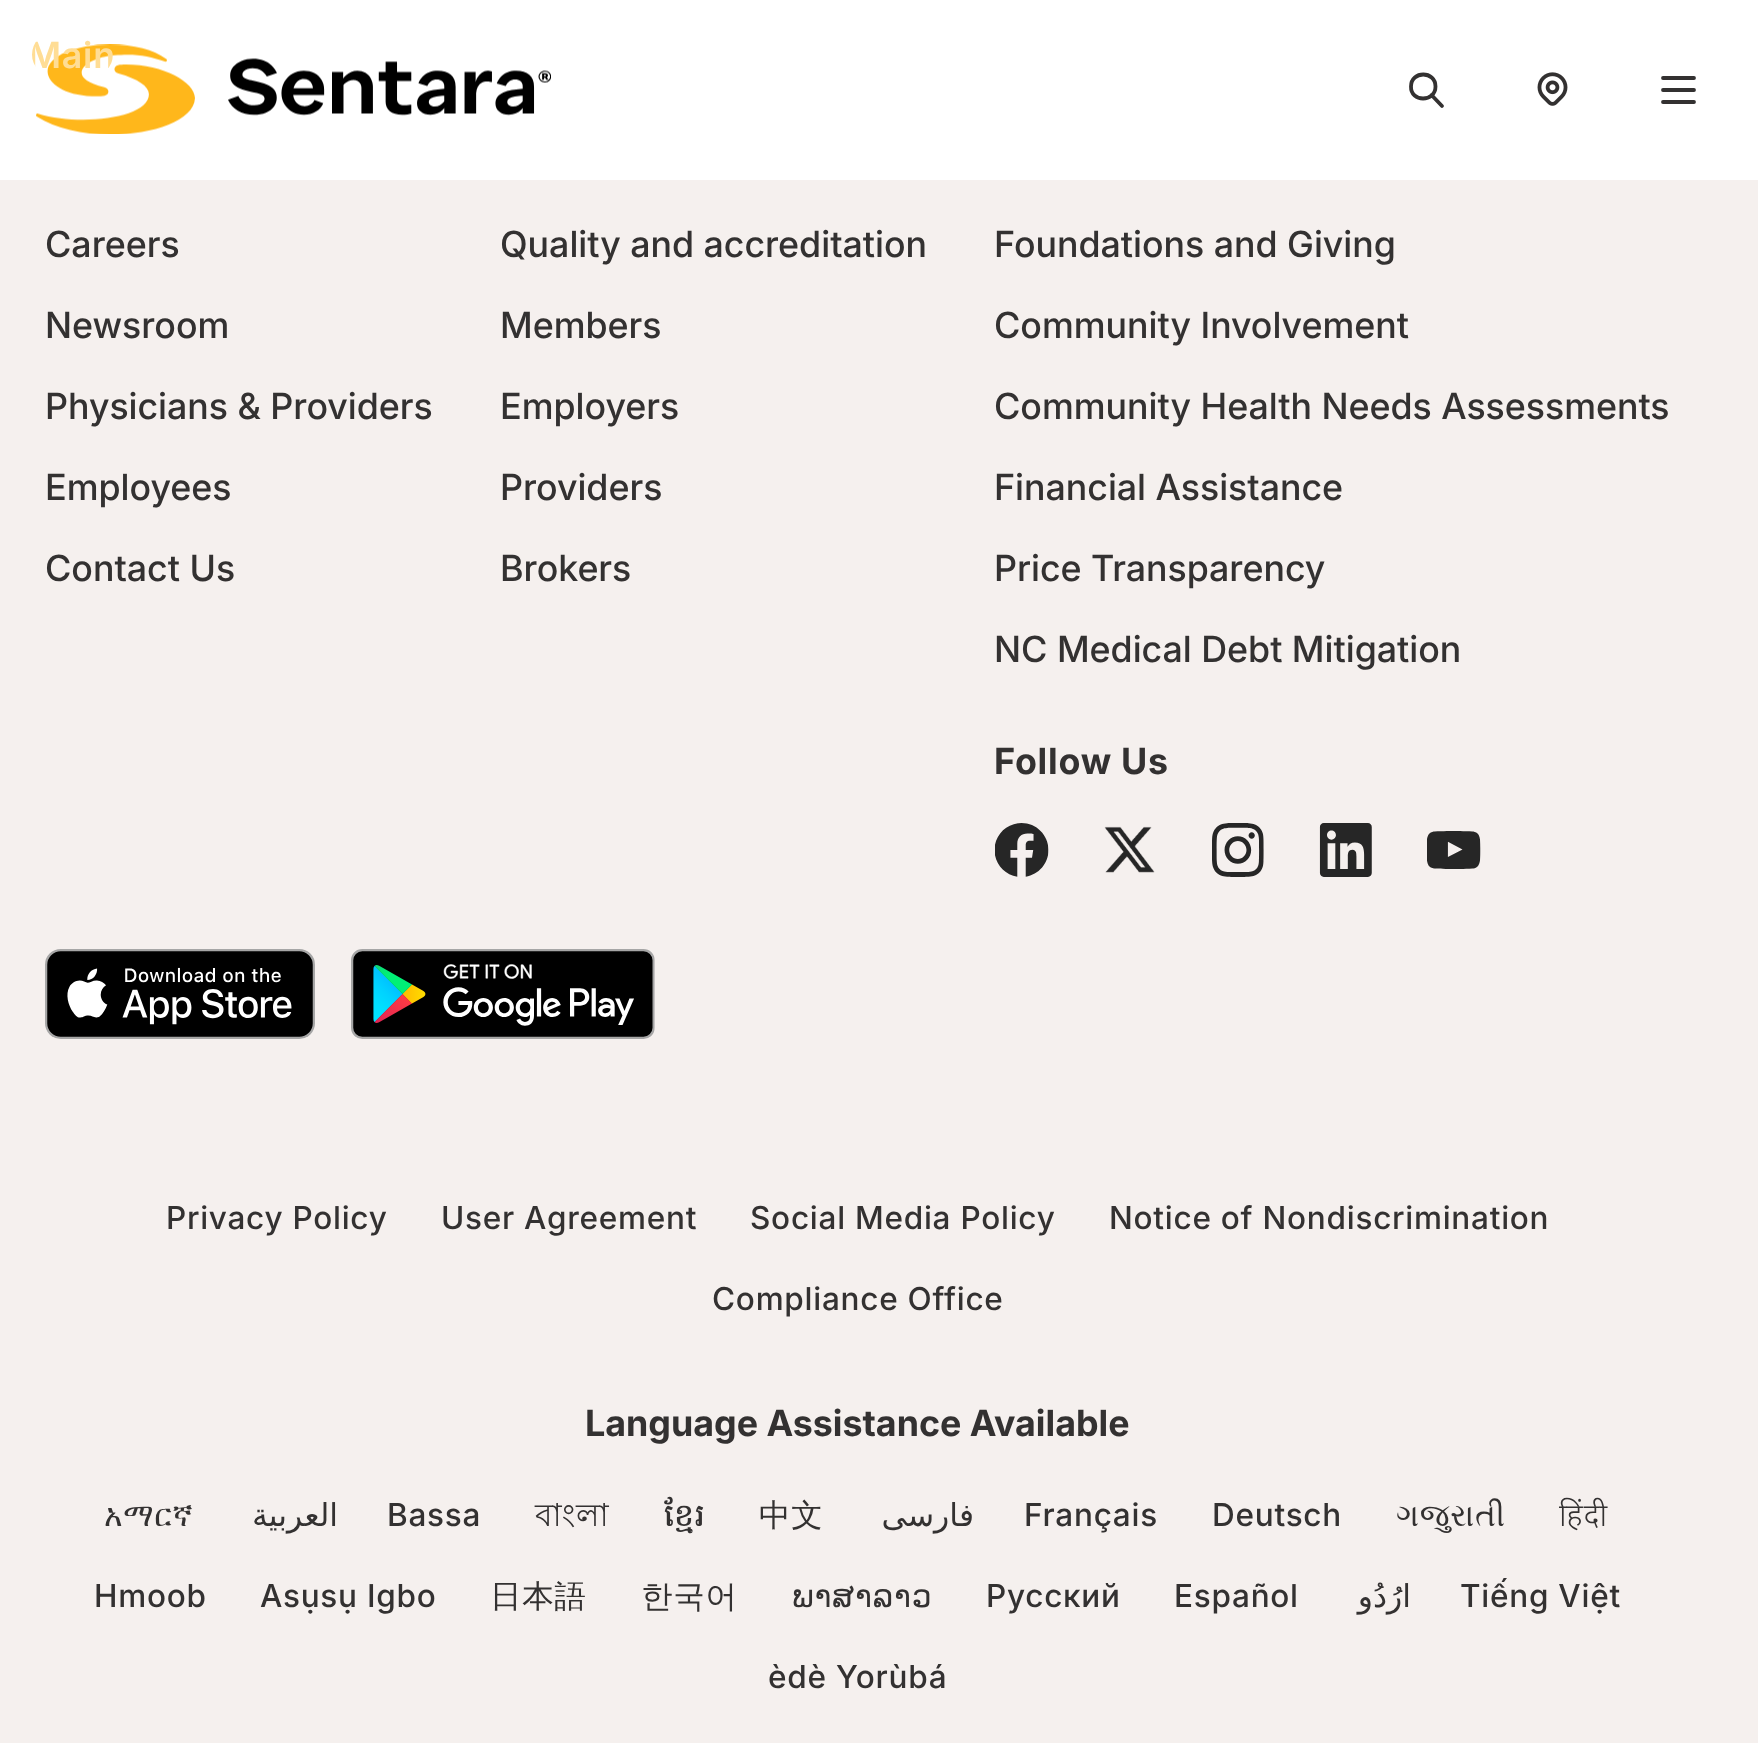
<svg xmlns="http://www.w3.org/2000/svg" width="1758" height="1743" viewBox="0 0 1758 1743">
  <style>
    .t1 { font: 600 36px Inter; letter-spacing: 0.75px; fill: #ffdd95; }
    .t2 { font: 500 36px Inter; fill: #333131; }
    .t3 { font: bold 36px Inter; letter-spacing: 0.75px; fill: #333131; }
    .t4 { font: 500 31.5px 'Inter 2'; letter-spacing: 0.75px; fill: #333131; }
    .t5 { font: bold 36px Inter; fill: #333131; }
    .t6 { font: 31.5px FreeSerif; letter-spacing: 0.75px; fill: #333131; }
    .t7 { font: 31.5px DejaVu Sans; letter-spacing: 0.75px; direction: rtl; fill: #333131; }
    .t8 { font: 31.5px Lohit Bengali; letter-spacing: 0.75px; fill: #333131; }
    .t9 { font: 500 31.5px Hanuman; letter-spacing: 0.75px; fill: #333131; }
    .t10 { font: 500 31.5px WenQuanYi Zen Hei; letter-spacing: 0.75px; fill: #333131; }
    .t11 { font: 300 31.5px Noto Sans; letter-spacing: 0.75px; fill: #333131; }
    .t12 { font: 31.5px DejaVu Sans; letter-spacing: 0.75px; fill: #333131; }
  </style>
  <defs>
    <clipPath id="clip1"><rect x="32" y="32" width="81" height="45" rx="22.5"/></clipPath>
  </defs>
  <rect width="100%" height="100%" fill="#f5f0ee"/>
  <rect x="0" y="0" width="1758" height="180" fill="#fff"/>
  <image x="36" y="44" width="515" height="90" href="images/1.png"/>
  <path d="M1442 106L1431.5 95M1435.5 86.5C1435.5 102.5 1410.5 102.5 1411 86.5C1411 70.5 1435.5 70.5 1435.5 86.5Z" fill="none" stroke="#333131" stroke-width="3.8" stroke-linecap="round" stroke-linejoin="round"/>
  <image x="1537" y="72" width="31" height="34" href="images/2.png"/>
  <path d="M1663 78H1694M1663 90H1694M1663 102H1694" fill="none" stroke="#333131" stroke-width="3.8" stroke-linecap="round" stroke-linejoin="round"/>
  <g clip-path="url(#clip1)">
    <text x="28" y="68" class="t1">Main</text>
  </g>
  <text x="45" y="257" class="t2">Careers</text>
  <text x="45" y="338" class="t2">Newsroom</text>
  <text x="45" y="419" class="t2">Physicians &amp; Providers</text>
  <text x="45" y="500" class="t2">Employees</text>
  <text x="45" y="581" class="t2">Contact Us</text>
  <text x="500" y="257" class="t2">Quality and accreditation</text>
  <text x="500" y="338" class="t2">Members</text>
  <text x="500" y="419" class="t2">Employers</text>
  <text x="500" y="500" class="t2">Providers</text>
  <text x="500" y="581" class="t2">Brokers</text>
  <text x="994" y="257" class="t2">Foundations and Giving</text>
  <text x="994" y="338" class="t2">Community Involvement</text>
  <text x="994" y="419" class="t2">Community Health Needs Assessments</text>
  <text x="994" y="500" class="t2">Financial Assistance</text>
  <text x="994" y="581" class="t2">Price Transparency</text>
  <text x="994" y="662" class="t2">NC Medical Debt Mitigation</text>
  <text x="994" y="774" class="t3">Follow Us</text>
  <image x="995" y="823" width="54" height="54" href="images/3.png"/>
  <image x="1104" y="826" width="51" height="47" href="images/4.png"/>
  <image x="1212" y="823" width="52" height="54" href="images/5.png"/>
  <image x="1319" y="823" width="53" height="54" href="images/6.png"/>
  <image x="1427" y="831" width="54" height="38" href="images/7.png"/>
  <image x="45" y="949" width="270" height="90" href="images/8.png"/>
  <image x="351" y="949" width="304" height="90" href="images/9.png"/>
  <text x="166" y="1229" class="t4">Privacy Policy</text>
  <text x="441" y="1229" class="t4">User Agreement</text>
  <text x="750" y="1229" class="t4">Social Media Policy</text>
  <text x="1109" y="1229" class="t4">Notice of Nondiscrimination</text>
  <text x="712" y="1310" class="t4">Compliance Office</text>
  <text x="585" y="1436" class="t5">Language Assistance Available</text>
  <text x="104" y="1526" class="t6">አማርኛ</text>
  <text x="338" y="1526" class="t7">العربية</text>
  <text x="387" y="1526" class="t4">Bassa</text>
  <text x="535" y="1526" class="t8">বাংলা</text>
  <text x="664" y="1526" class="t9">ខ្មែរ</text>
  <text x="759" y="1526" class="t10">中文</text>
  <text x="974" y="1526" class="t7">فارسی</text>
  <text x="1024" y="1526" class="t4">Français</text>
  <text x="1212" y="1526" class="t4">Deutsch</text>
  <text x="1396" y="1526" class="t6">ગજુરાતી</text>
  <text x="1559" y="1526" class="t11">हिंदी</text>
  <text x="94" y="1607" class="t4">Hmoob</text>
  <text x="260" y="1607" class="t4">Asụsụ Igbo</text>
  <text x="490" y="1607" class="t10">日本語</text>
  <text x="641" y="1607" class="t10">한국어</text>
  <text x="792" y="1607" class="t12">ພາສາລາວ</text>
  <text x="986" y="1607" class="t4">Русский</text>
  <text x="1174" y="1607" class="t4">Español</text>
  <text x="1411" y="1607" class="t7">ارُدُو</text>
  <text x="1460" y="1607" class="t4">Tiếng Việt</text>
  <text x="768" y="1688" class="t4">èdè Yorùbá</text>
</svg>
